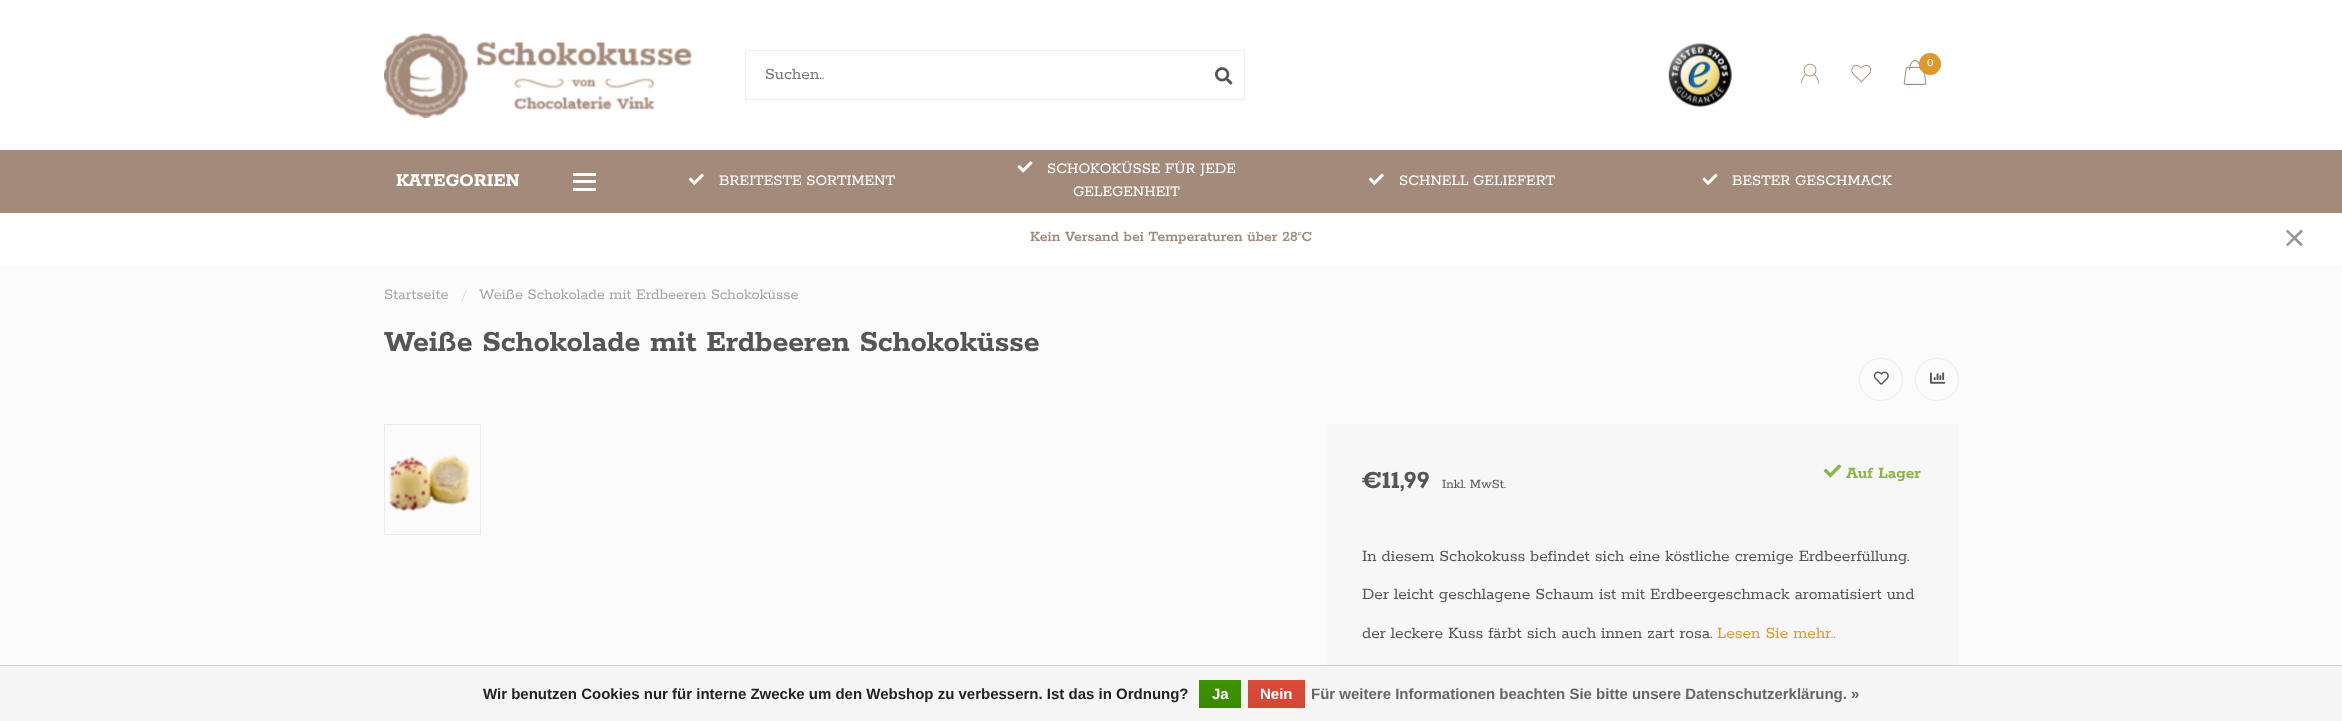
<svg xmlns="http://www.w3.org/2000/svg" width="2342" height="721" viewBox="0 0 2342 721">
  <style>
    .t1 { font: 12px Rokkitt; fill: #fff; }
    .t2 { font: 17.5px Rokkitt; fill: #757575; }
    .t3 { font: bold 20px Rokkitt; fill: #fff; }
    .t4 { font: 16.25px Rokkitt; fill: #fff; }
    .t5 { font: 600 15.75px Rokkitt; fill: #a48a7a; }
    .t6 { font: 16.25px Rokkitt; fill: #a5a5a5; }
    .t7 { font: 16.25px Rokkitt; fill: #ddd; }
    .t8 { font: bold 32.5px Rokkitt; fill: #555; }
    .t9 { font: bold 27.5px Rokkitt; fill: #555; }
    .t10 { font: 14px Rokkitt; fill: #555; }
    .t11 { font: bold 17.5px Rokkitt; fill: #8bb64c; }
    .t12 { font: 17.5px Rokkitt; fill: #555; }
    .t13 { font: 17.5px Rokkitt; fill: #de982e; }
    .t14 { font: bold 15px Liberation Sans; fill: #222; }
    .t15 { font: bold 15px Liberation Sans; fill: #fff; }
    .t16 { font: bold 15px Liberation Sans; fill: #666; }
  </style>
  <defs>
    <linearGradient id="g1" gradientUnits="userSpaceOnUse" x1="1220" y1="680" x2="1220" y2="708"><stop offset="0" stop-color="#3c9300"/><stop offset="1" stop-color="#398a00"/></linearGradient>
    <linearGradient id="g2" gradientUnits="userSpaceOnUse" x1="1276" y1="680" x2="1276" y2="708"><stop offset="0" stop-color="#dc4a38"/><stop offset="1" stop-color="#d14836"/></linearGradient>
  </defs>
  <rect width="100%" height="100%" fill="#fbfbfb"/>
  <rect x="0" y="0" width="2342" height="150" fill="#fff"/>
  <image x="384" y="33" width="308" height="85" href="images/1.png"/>
  <image x="1668" y="43" width="64" height="64" href="images/2.png"/>
  <image x="1801" y="63" width="18" height="21" href="images/3.png"/>
  <image x="1851" y="65" width="21" height="18" href="images/4.png"/>
  <image x="1903" y="60" width="24" height="25" href="images/5.png"/>
  <circle cx="1930" cy="64" r="11" fill="#de982e"/>
  <text x="1927" y="66" class="t1">0</text>
  <rect x="745.5" y="50.5" width="499" height="49" fill="none" stroke="#eee"/>
  <text x="765" y="79" class="t2">Suchen..</text>
  <image x="1215" y="67" width="18" height="18" href="images/6.png"/>
  <rect x="0" y="150" width="2342" height="63" fill="#a48a7a"/>
  <text x="396" y="186" class="t3">KATEGORIEN</text>
  <rect x="573" y="173" width="23" height="3" fill="#fff"/>
  <rect x="573" y="180" width="23" height="3" fill="#fff"/>
  <rect x="573" y="188" width="23" height="3" fill="#fff"/>
  <image x="688" y="173" width="16" height="12" href="images/7.png"/>
  <text x="719" y="185" class="t4">BREITESTE SORTIMENT</text>
  <image x="1017" y="161" width="16" height="12" href="images/8.png"/>
  <text x="1047" y="173" class="t4">SCHOKOKÜSSE FÜR JEDE</text>
  <text x="1073" y="196" class="t4">GELEGENHEIT</text>
  <image x="1368" y="173" width="16" height="12" href="images/7.png"/>
  <text x="1399" y="185" class="t4">SCHNELL GELIEFERT</text>
  <image x="1702" y="173" width="16" height="12" href="images/9.png"/>
  <text x="1732" y="185" class="t4">BESTER GESCHMACK</text>
  <rect x="0" y="213" width="2342" height="52" fill="#fff"/>
  <text x="1030" y="241" class="t5">Kein Versand bei Temperaturen über 28°C</text>
  <path d="M2287.5 229.5L2303 244.5L2301 246.5L2286 231.5Z" fill="#999"/>
  <path d="M2286 244.5L2301 229.5L2303 231.5L2287.5 246.5Z" fill="#999"/>
  <text x="384" y="299" class="t6">Startseite</text>
  <text x="461" y="299" class="t7">/</text>
  <text x="479" y="299" class="t6">Weiße Schokolade mit Erdbeeren Schokoküsse</text>
  <text x="384" y="351" class="t8">Weiße Schokolade mit Erdbeeren Schokoküsse</text>
  <rect x="1859.5" y="358.5" width="43" height="42" rx="21" fill="none" stroke="#ebebeb"/>
  <image x="1873" y="371" width="16" height="14" href="images/10.png"/>
  <rect x="1915.5" y="358.5" width="43" height="42" rx="21" fill="none" stroke="#ebebeb"/>
  <image x="1930" y="372" width="15" height="12" href="images/11.png"/>
  <rect x="384.5" y="424.5" width="96" height="110" fill="none" stroke="#ebebeb"/>
  <image x="388" y="454" width="82" height="57" href="images/12.png"/>
  <rect x="1325" y="424" width="634" height="241" fill="#f7f7f7"/>
  <text x="1362" y="488" class="t9">€11,99</text>
  <text x="1442" y="488" class="t10">Inkl. MwSt.</text>
  <image x="1823" y="464" width="19" height="14" href="images/13.png"/>
  <text x="1846" y="478" class="t11">Auf Lager</text>
  <text x="1362" y="561" class="t12">In diesem Schokokuss befindet sich eine köstliche cremige Erdbeerfüllung.</text>
  <text x="1362" y="599" class="t12">Der leicht geschlagene Schaum ist mit Erdbeergeschmack aromatisiert und</text>
  <text x="1362" y="638" class="t12">der leckere Kuss färbt sich auch innen zart rosa.</text>
  <text x="1717" y="638" class="t13">Lesen Sie mehr..</text>
  <rect x="0" y="666" width="2342" height="55" fill="#f5f5f5"/>
  <rect x="0" y="665" width="2342" height="1" fill="#ccc"/>
  <text x="483" y="699" class="t14">Wir benutzen Cookies nur für interne Zwecke um den Webshop zu verbessern. Ist das in Ordnung?</text>
  <rect x="1199" y="680" width="42" height="28" fill="url(#g1)"/>
  <text x="1212" y="699" class="t15">Ja</text>
  <rect x="1248" y="680" width="57" height="28" fill="url(#g2)"/>
  <text x="1260" y="699" class="t15">Nein</text>
  <text x="1311" y="699" class="t16">Für weitere Informationen beachten Sie bitte unsere Datenschutzerklärung. »</text>
</svg>
